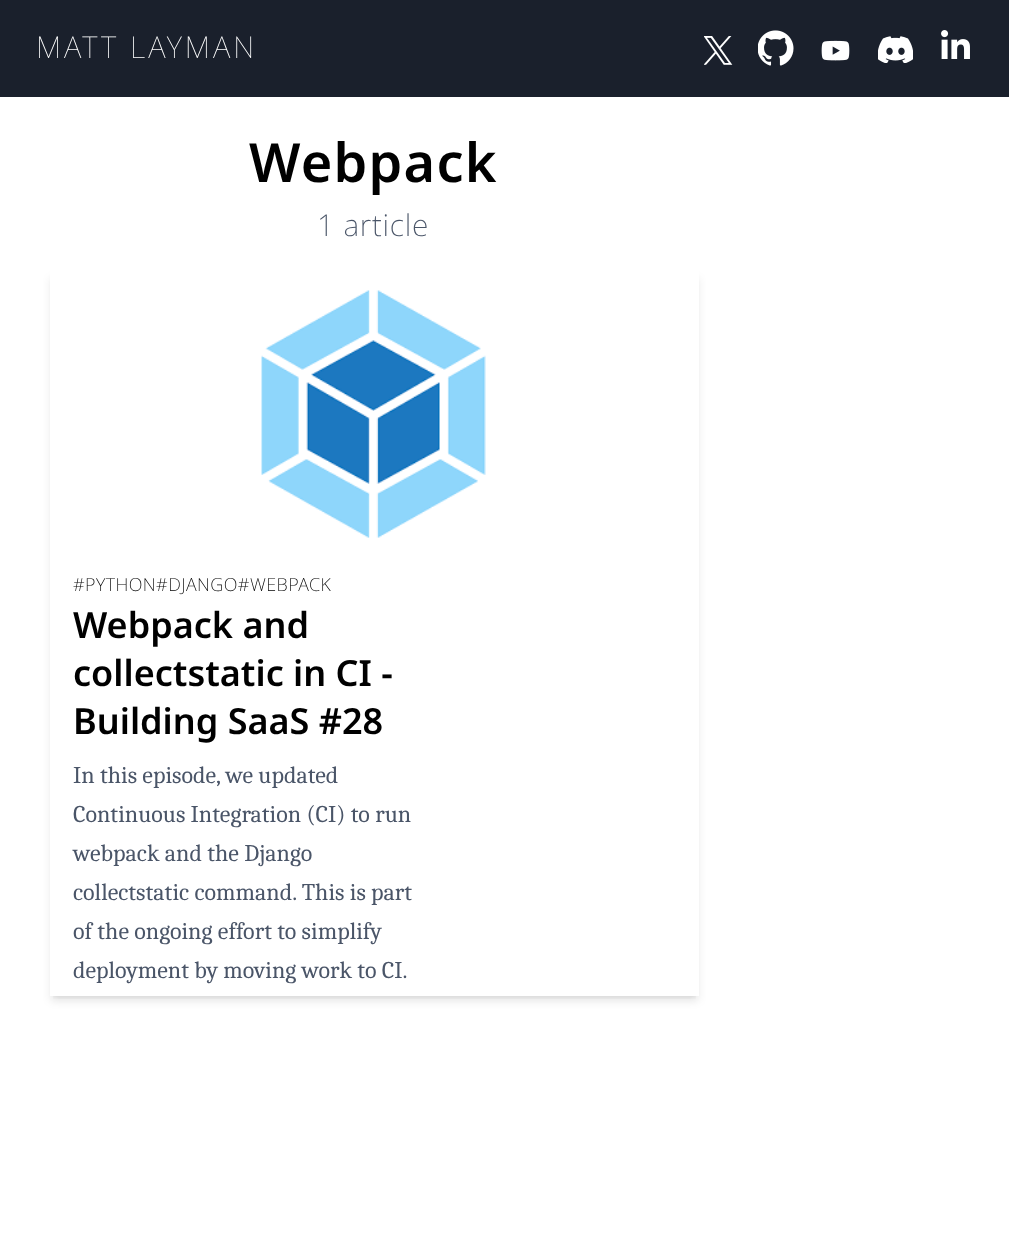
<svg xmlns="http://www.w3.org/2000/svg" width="1009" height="1242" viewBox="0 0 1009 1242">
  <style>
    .t1 { font: 100 30px Noto Sans; letter-spacing: 3px; fill: #fff; }
    .t2 { font: 600 54px Noto Sans; letter-spacing: 1.25px; fill: #000; }
    .t3 { font: 200 30px Noto Sans; letter-spacing: 0.75px; fill: #4a5568; }
    .t4 { font: 200 18px Noto Sans; letter-spacing: 0.45px; fill: #000; }
    .t5 { font: 600 36px Noto Sans; fill: #000; }
    .t6 { font: 24px Caladea; fill: #4a5568; }
  </style>
  <defs>
    <clipPath id="clip1"><rect x="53" y="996" width="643" height="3"/></clipPath>
    <clipPath id="clip2"><path d="M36 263H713V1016H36ZM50 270H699V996H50Z" clip-rule="evenodd"/></clipPath>
  </defs>
  <rect width="100%" height="100%" fill="#fff"/>
  <rect x="0" y="0" width="1009" height="97" fill="#1a202c"/>
  <text x="36" y="58" class="t1">MATT LAYMAN</text>
  <image x="704" y="36" width="29" height="29" href="images/1.png"/>
  <image x="758" y="30" width="36" height="36" href="images/2.png"/>
  <image x="821" y="40" width="29" height="21" href="images/3.png"/>
  <image x="878" y="36" width="35" height="27" href="images/4.png"/>
  <image x="941" y="30" width="29" height="29" href="images/5.png"/>
  <text x="249" y="182" class="t2">Webpack</text>
  <text x="317" y="236" class="t3">1 article</text>
  <g clip-path="url(#clip1)">
    <rect x="53" y="276" width="643" height="720" fill="#0000001a" filter="blur(3px)"/>
  </g>
  <g clip-path="url(#clip2)">
    <rect x="51" y="278" width="647" height="723" fill="#0000001a" filter="blur(4.5px)"/>
  </g>
  <image x="261" y="290" width="225" height="248" href="images/6.png"/>
  <text x="73" y="591" class="t4">#PYTHON#DJANGO#WEBPACK</text>
  <text x="73" y="638" class="t5">Webpack and</text>
  <text x="73" y="686" class="t5">collectstatic in CI -</text>
  <text x="73" y="734" class="t5">Building SaaS #28</text>
  <text x="73" y="783" class="t6">In this episode, we updated</text>
  <text x="73" y="822" class="t6">Continuous Integration (CI) to run</text>
  <text x="73" y="861" class="t6">webpack and the Django</text>
  <text x="73" y="900" class="t6">collectstatic command. This is part</text>
  <text x="73" y="939" class="t6">of the ongoing effort to simplify</text>
  <text x="73" y="978" class="t6">deployment by moving work to CI.</text>
</svg>
